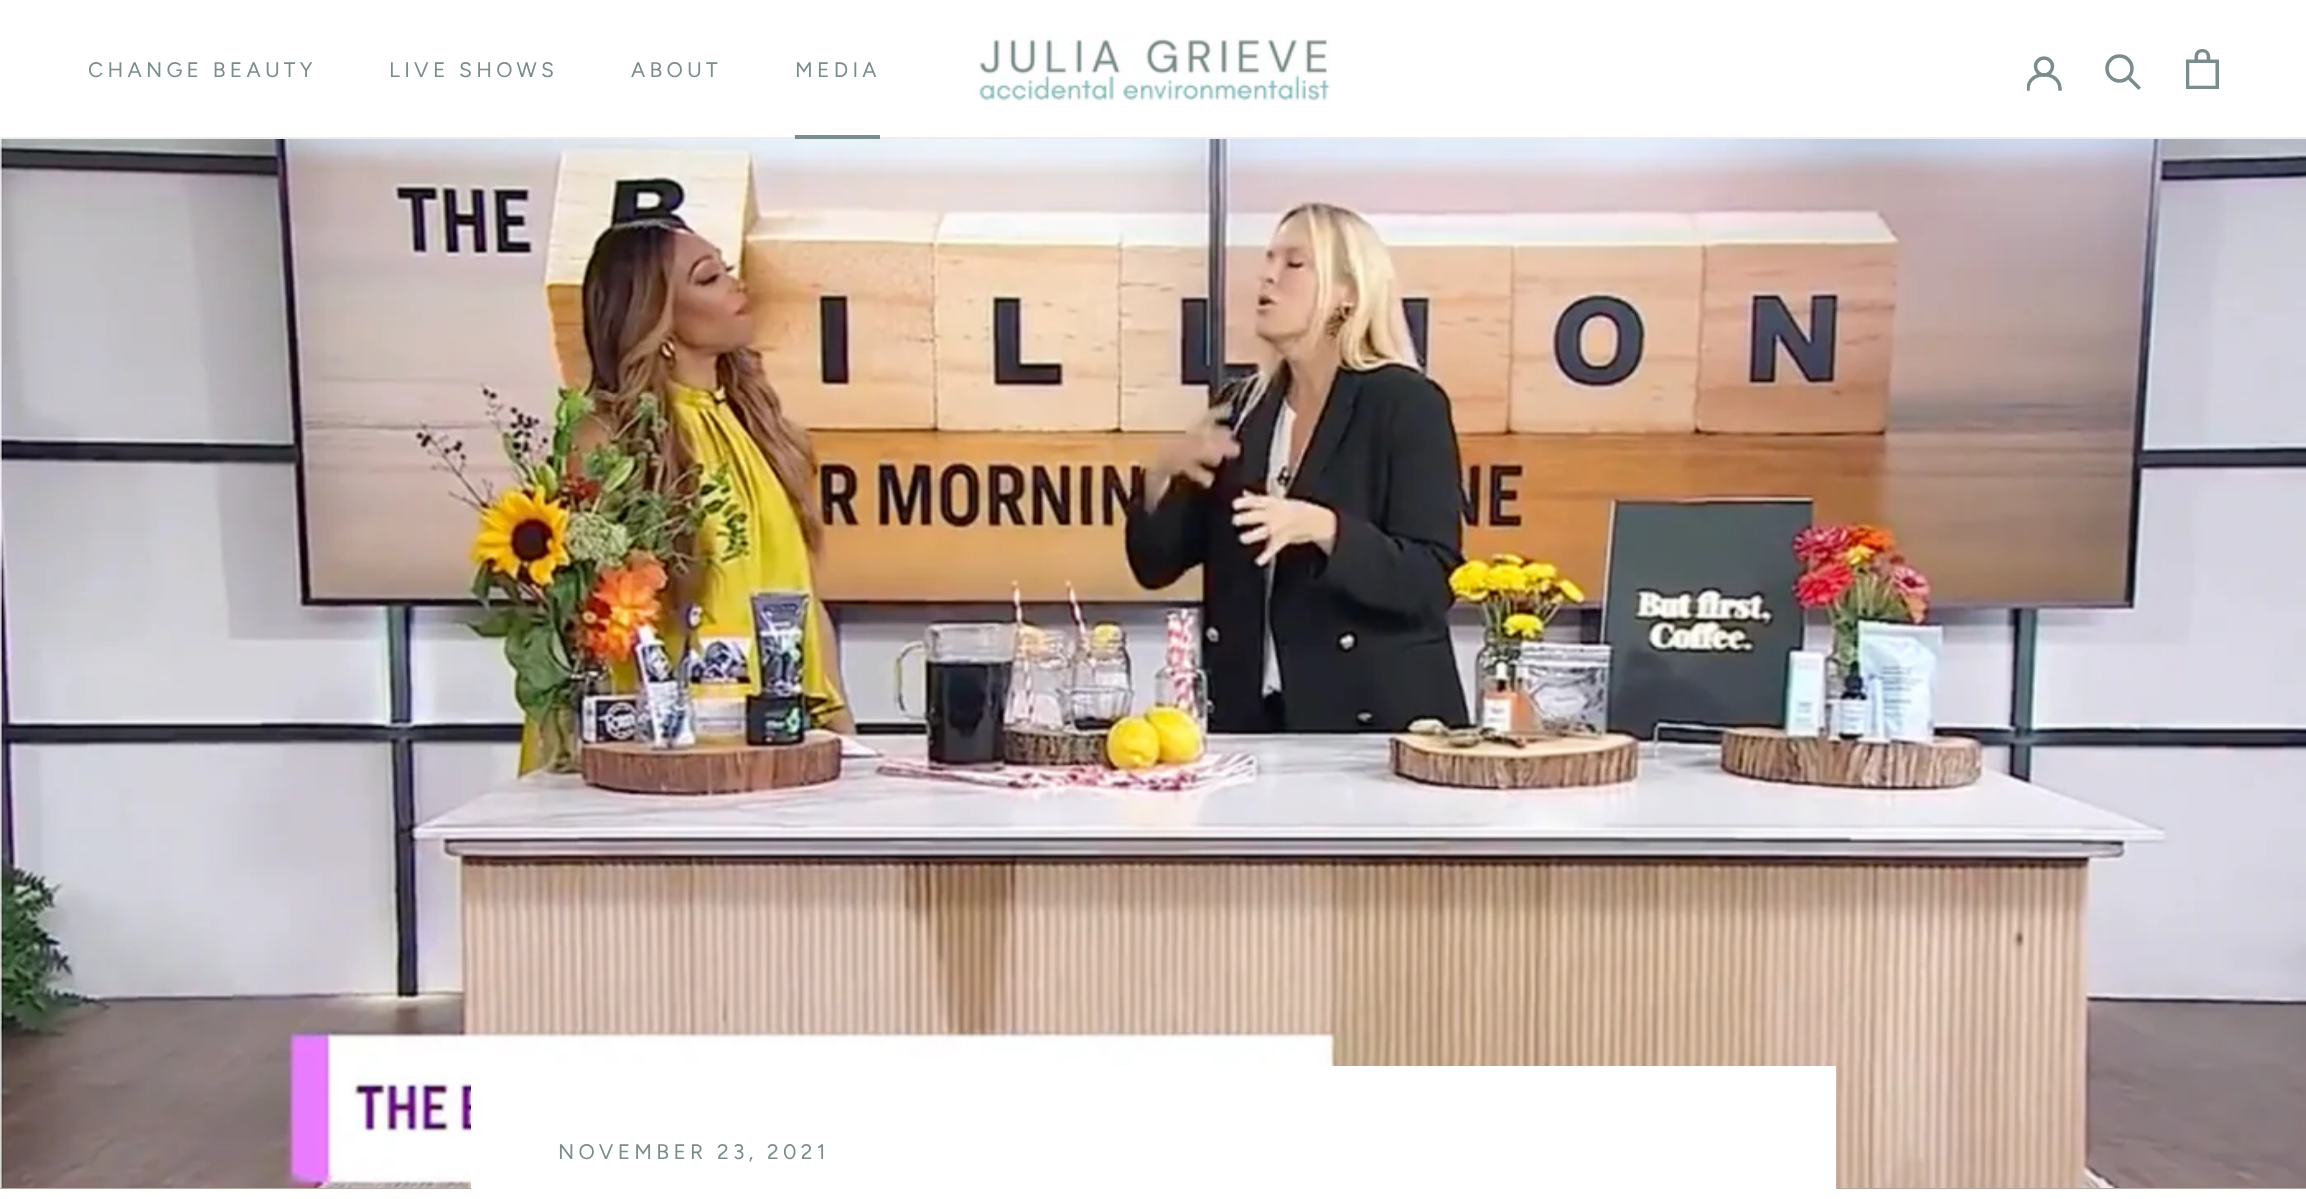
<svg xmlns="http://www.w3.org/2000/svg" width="2306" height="1199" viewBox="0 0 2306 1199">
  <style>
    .t1 { font: 21px Figtree; letter-spacing: 4.25px; fill: #7a8c8c; }
  </style>
  <defs>
    <clipPath id="clip1"><rect x="2027" y="56" width="35" height="35"/></clipPath>
  </defs>
  <rect width="100%" height="100%" fill="#fff"/>
  <rect x="0" y="137" width="2306" height="2" fill="#ebeeee"/>
  <text x="88" y="77" class="t1">CHANGE BEAUTY</text>
  <text x="389" y="77" class="t1">LIVE SHOWS</text>
  <text x="631" y="77" class="t1">ABOUT</text>
  <text x="795" y="77" class="t1">MEDIA</text>
  <rect x="795" y="135" width="85" height="4" fill="#7a8c8c"/>
  <image x="978" y="32" width="353" height="70" href="images/1.png"/>
  <g clip-path="url(#clip1)">
    <path d="M2028 89C2028 70 2060 70 2060 89" fill="none" stroke="#7a8c8c" stroke-width="3.5" stroke-linecap="square"/>
  </g>
  <circle cx="2044" cy="66.5" r="8.5" fill="none" stroke="#7a8c8c" stroke-width="3.5"/>
  <path d="M2138.5 87.5L2128.5 77.5" fill="none" stroke="#7a8c8c" stroke-width="3.5" stroke-linecap="square"/>
  <circle cx="2119.5" cy="68.5" r="12.5" fill="none" stroke="#7a8c8c" stroke-width="3.5"/>
  <image x="2186" y="49" width="33" height="40" href="images/2.png"/>
  <rect x="0" y="1188" width="2306" height="1" fill="#b6a6a0"/>
  <image x="0" y="139" width="2306" height="1049" href="images/3.png"/>
  <rect x="471" y="1066" width="1365" height="123" fill="#fff"/>
  <text x="558" y="1159" class="t1">NOVEMBER 23, 2021</text>
</svg>
